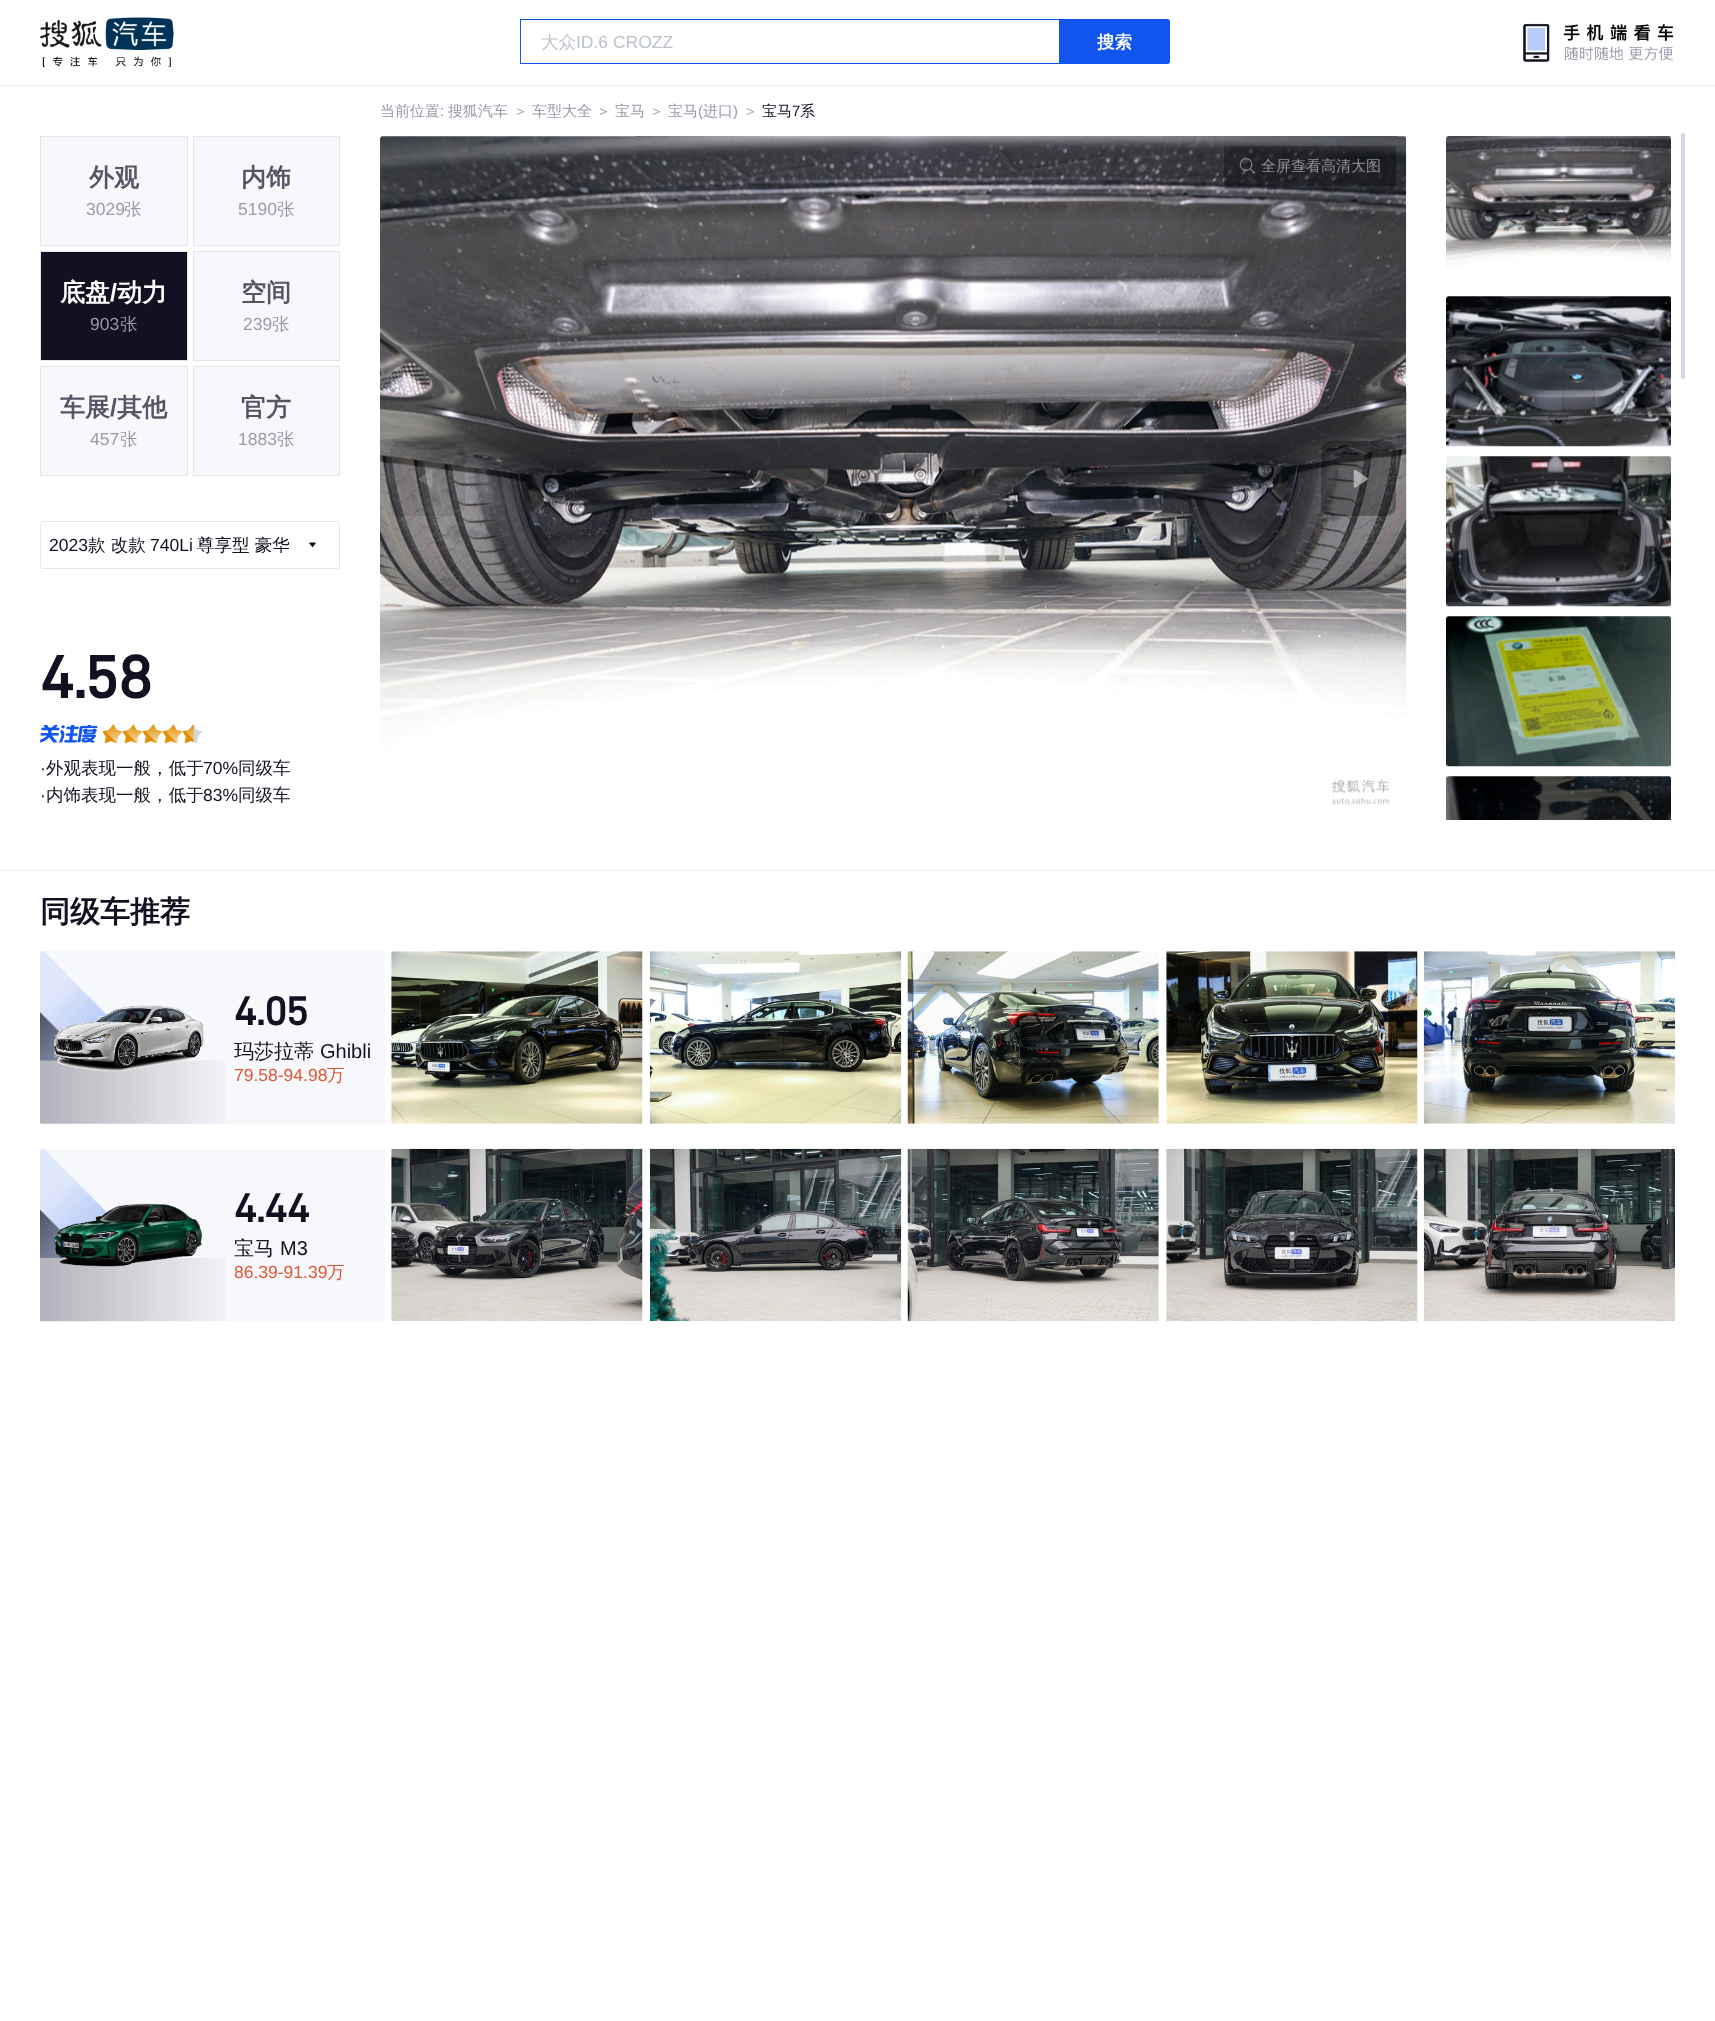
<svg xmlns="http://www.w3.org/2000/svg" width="1715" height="2021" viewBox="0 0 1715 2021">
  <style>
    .t1 { font: 500 17.5px WenQuanYi Zen Hei; fill: #bbc2cc; }
    .t2 { font: 17.5px Liberation Sans; fill: #bbc2cc; }
    .t3 { font: bold 17.5px WenQuanYi Zen Hei; fill: #fff; }
    .t4 { font: 500 15px WenQuanYi Zen Hei; fill: #99a; }
    .t5 { font: 15px Liberation Sans; fill: #99a; }
    .t6 { font: 500 15px WenQuanYi Zen Hei; fill: #112; }
    .t7 { font: 15px Liberation Sans; fill: #112; }
    .t8 { font: bold 25px WenQuanYi Zen Hei; fill: #556; }
    .t9 { font: 17.5px Liberation Sans; fill: #99a; }
    .t10 { font: 500 17.5px WenQuanYi Zen Hei; fill: #99a; }
    .t11 { font: bold 25px WenQuanYi Zen Hei; fill: #fff; }
    .t12 { font: bold 25px Liberation Sans; fill: #fff; }
    .t13 { font: bold 25px Liberation Sans; fill: #556; }
    .t14 { font: 17.5px Liberation Sans; fill: #112; }
    .t15 { font: 500 17.5px WenQuanYi Zen Hei; fill: #112; }
    .t16 { font: bold 60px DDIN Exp; fill: #112; }
    .t17 { font: 500 15px WenQuanYi Zen Hei; fill: #909193; }
    .t18 { font: bold 30px WenQuanYi Zen Hei; fill: #112; }
    .t19 { font: bold 40px DDIN Exp; fill: #112; }
    .t20 { font: 500 20px WenQuanYi Zen Hei; fill: #112; }
    .t21 { font: 20px Liberation Sans; fill: #112; }
    .t22 { font: 17.5px Liberation Sans; fill: #d53; }
    .t23 { font: 500 17.5px WenQuanYi Zen Hei; fill: #d53; }
  </style>
  <rect width="100%" height="100%" fill="#fff"/>
  <rect x="0" y="85" width="1715" height="1" fill="#eeeef0"/>
  <image x="40" y="17" width="134" height="50" href="images/1.png"/>
  <rect x="520.5" y="19.5" width="539" height="44" fill="none" stroke="#15e"/>
  <text x="541" y="48" class="t1">大众</text>
  <text x="576" y="48" class="t2">ID.6 CROZZ</text>
  <path d="M1060 19H1167.5C1169 19 1170 20 1170 21.5V61.5C1170 63 1169 64 1167.5 64H1060Z" fill="#15e"/>
  <text x="1097" y="48" class="t3">搜索</text>
  <image x="1523" y="23" width="151" height="39" href="images/2.png"/>
  <text x="380" y="116" class="t4">当前位置</text>
  <text x="440" y="116" class="t5">:</text>
  <text x="448" y="116" class="t4">搜狐汽车</text>
  <text x="513" y="116" class="t4">＞</text>
  <text x="532" y="116" class="t4">车型大全</text>
  <text x="596" y="116" class="t4">＞</text>
  <text x="615" y="116" class="t4">宝马</text>
  <text x="649" y="116" class="t4">＞</text>
  <text x="668" y="116" class="t4">宝马</text>
  <text x="698" y="116" class="t5">(</text>
  <text x="703" y="116" class="t4">进口</text>
  <text x="733" y="116" class="t5">)</text>
  <text x="743" y="116" class="t4">＞</text>
  <text x="762" y="116" class="t6">宝马</text>
  <text x="792" y="116" class="t7">7</text>
  <text x="800" y="116" class="t6">系</text>
  <rect x="40.5" y="136.5" width="147" height="109" fill="#f7f8fc" stroke="#e5e5ee"/>
  <text x="89" y="186" class="t8">外观</text>
  <text x="86" y="215" class="t9">3029</text>
  <text x="124" y="215" class="t10">张</text>
  <rect x="193.5" y="136.5" width="146" height="109" fill="#f7f8fc" stroke="#e5e5ee"/>
  <text x="241" y="186" class="t8">内饰</text>
  <text x="238" y="215" class="t9">5190</text>
  <text x="277" y="215" class="t10">张</text>
  <rect x="40.5" y="251.5" width="147" height="109" fill="#112" stroke="#e5e5ee"/>
  <text x="60" y="301" class="t11">底盘</text>
  <text x="110" y="301" class="t12">/</text>
  <text x="117" y="301" class="t11">动力</text>
  <text x="90" y="330" class="t9">903</text>
  <text x="120" y="330" class="t10">张</text>
  <rect x="193.5" y="251.5" width="146" height="109" fill="#f7f8fc" stroke="#e5e5ee"/>
  <text x="241" y="301" class="t8">空间</text>
  <text x="243" y="330" class="t9">239</text>
  <text x="272" y="330" class="t10">张</text>
  <rect x="40.5" y="366.5" width="147" height="109" fill="#f7f8fc" stroke="#e5e5ee"/>
  <text x="60" y="416" class="t8">车展</text>
  <text x="110" y="416" class="t13">/</text>
  <text x="117" y="416" class="t8">其他</text>
  <text x="90" y="445" class="t9">457</text>
  <text x="120" y="445" class="t10">张</text>
  <rect x="193.5" y="366.5" width="146" height="109" fill="#f7f8fc" stroke="#e5e5ee"/>
  <text x="241" y="416" class="t8">官方</text>
  <text x="238" y="445" class="t9">1883</text>
  <text x="277" y="445" class="t10">张</text>
  <rect x="40.5" y="521.5" width="299" height="47" rx="2" fill="none" stroke="#e5e5ee"/>
  <text x="49" y="551" class="t14">2023</text>
  <text x="88" y="551" class="t15">款 改款</text>
  <text x="150" y="551" class="t14">740Li</text>
  <text x="197" y="551" class="t15">尊享型 豪华</text>
  <image x="309" y="542" width="7" height="6" href="images/3.png"/>
  <text x="40" y="698" class="t16">4.58</text>
  <image x="40" y="725" width="58" height="18" href="images/4.png"/>
  <image x="102" y="724" width="21" height="19" href="images/5.png"/>
  <image x="122" y="724" width="21" height="19" href="images/9.png"/>
  <image x="102" y="724" width="21" height="19" href="images/6.png"/>
  <image x="142" y="724" width="21" height="19" href="images/9.png"/>
  <image x="122" y="724" width="21" height="19" href="images/7.png"/>
  <image x="162" y="724" width="21" height="19" href="images/9.png"/>
  <image x="142" y="724" width="21" height="19" href="images/7.png"/>
  <image x="182" y="724" width="21" height="19" href="images/9.png"/>
  <image x="162" y="724" width="21" height="19" href="images/7.png"/>
  <image x="182" y="724" width="12" height="19" href="images/8.png"/>
  <text x="40" y="774" class="t14">·</text>
  <text x="46" y="774" class="t15">外观表现一般，低于</text>
  <text x="203" y="774" class="t14">70%</text>
  <text x="238" y="774" class="t15">同级车</text>
  <text x="40" y="801" class="t14">·</text>
  <text x="46" y="801" class="t15">内饰表现一般，低于</text>
  <text x="203" y="801" class="t14">83%</text>
  <text x="238" y="801" class="t15">同级车</text>
  <image x="380" y="136" width="1027" height="669" href="images/10.png"/>
  <rect x="1224" y="146" width="172" height="40" rx="2.5" fill="#0000004d"/>
  <image x="1239" y="158" width="16" height="16" href="images/11.png"/>
  <text x="1261" y="171" class="t17">全屏查看高清大图</text>
  <rect x="390" y="441" width="75" height="75" rx="10" fill="#0000001a"/>
  <image x="418" y="470" width="15" height="18" href="images/12.png"/>
  <rect x="1321" y="441" width="75" height="75" rx="10" fill="#0000004d"/>
  <image x="1353" y="469" width="15" height="19" href="images/13.png"/>
  <image x="1446" y="136" width="225" height="132" href="images/14.png"/>
  <image x="1446" y="296" width="225" height="151" href="images/15.png"/>
  <image x="1446" y="456" width="225" height="151" href="images/16.png"/>
  <image x="1446" y="616" width="225" height="151" href="images/17.png"/>
  <image x="1446" y="776" width="225" height="44" href="images/18.png"/>
  <rect x="1681" y="133" width="4" height="246" rx="2" fill="#d5d5e2"/>
  <rect x="0" y="870" width="1715" height="1" fill="#eeeef0"/>
  <text x="40" y="922" class="t18">同级车推荐</text>
  <rect x="40" y="951" width="345" height="173" fill="#f7f8fc"/>
  <image x="40" y="951" width="186" height="173" href="images/19.png"/>
  <image x="53" y="1005" width="151" height="67" href="images/20.png"/>
  <text x="234" y="1025" class="t19">4.05</text>
  <text x="234" y="1058" class="t20">玛莎拉蒂</text>
  <text x="320" y="1058" class="t21">Ghibli</text>
  <text x="234" y="1081" class="t22">79.58-94.98</text>
  <text x="327" y="1081" class="t23">万</text>
  <image x="391" y="951" width="252" height="173" href="images/21.png"/>
  <image x="650" y="951" width="252" height="173" href="images/22.png"/>
  <image x="907" y="951" width="252" height="173" href="images/23.png"/>
  <image x="1166" y="951" width="252" height="173" href="images/24.png"/>
  <image x="1423" y="951" width="252" height="173" href="images/25.png"/>
  <rect x="40" y="1149" width="345" height="172" fill="#f7f8fc"/>
  <image x="40" y="1148" width="186" height="174" href="images/26.png"/>
  <image x="54" y="1203" width="148" height="64" href="images/27.png"/>
  <text x="234" y="1222" class="t19">4.44</text>
  <text x="234" y="1255" class="t20">宝马</text>
  <text x="280" y="1255" class="t21">M3</text>
  <text x="234" y="1278" class="t22">86.39-91.39</text>
  <text x="327" y="1278" class="t23">万</text>
  <image x="391" y="1148" width="252" height="174" href="images/28.png"/>
  <image x="650" y="1148" width="252" height="174" href="images/29.png"/>
  <image x="907" y="1148" width="252" height="174" href="images/30.png"/>
  <image x="1166" y="1148" width="252" height="174" href="images/31.png"/>
  <image x="1423" y="1148" width="252" height="174" href="images/32.png"/>
</svg>
